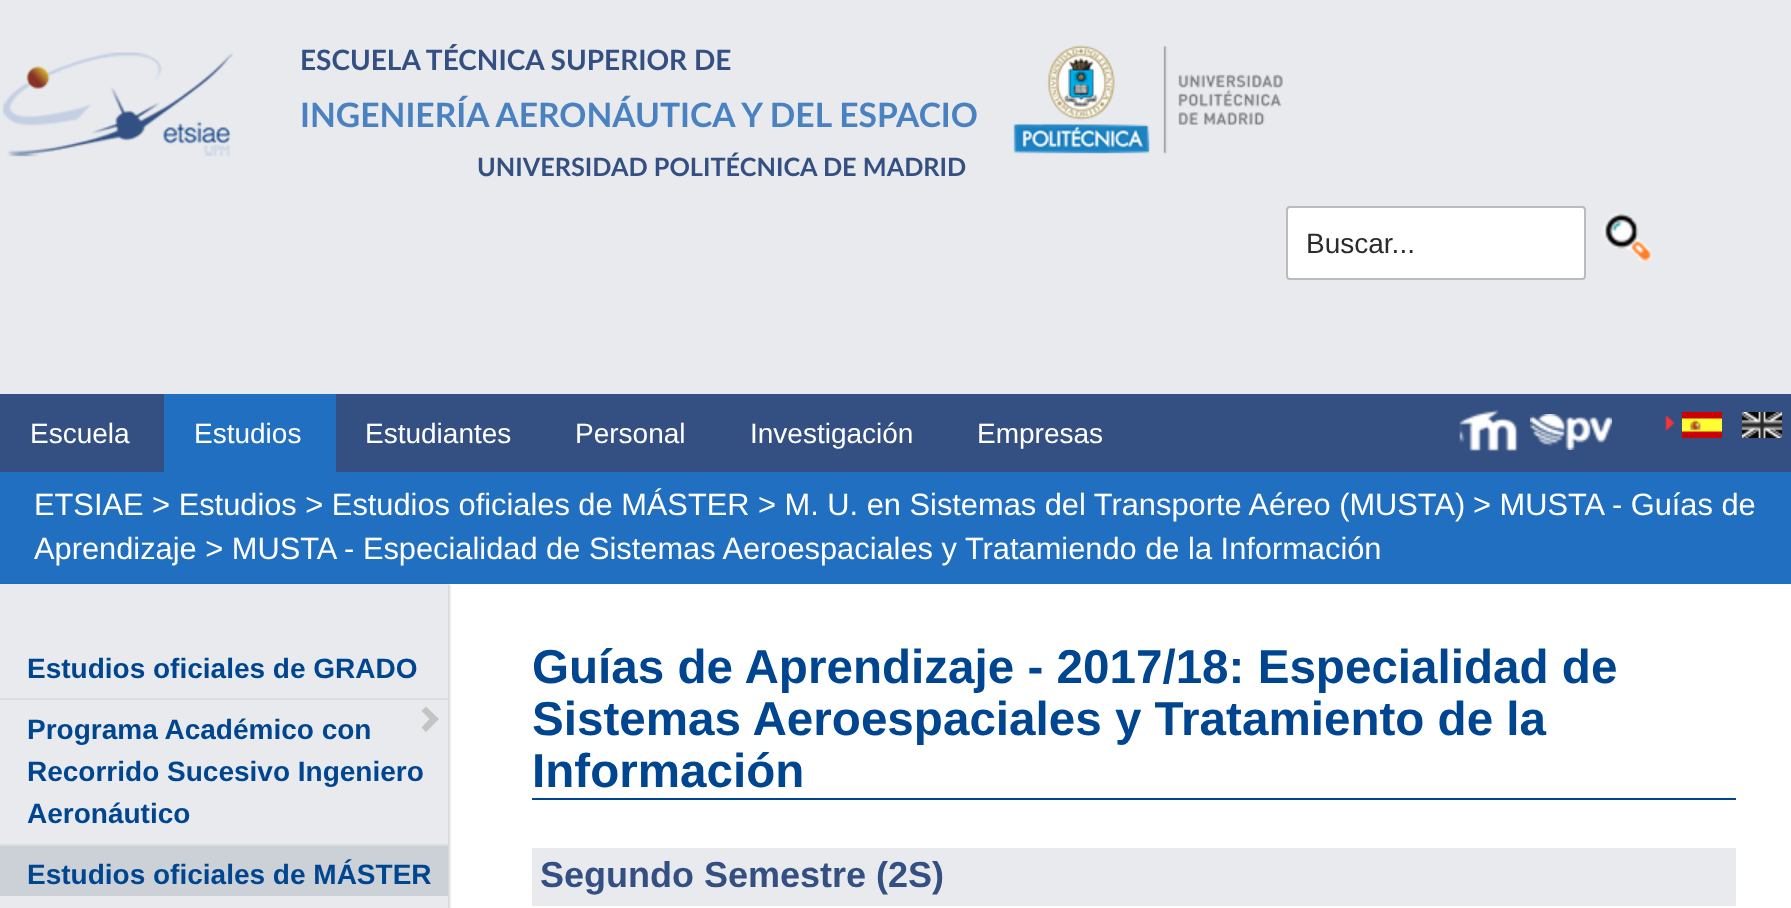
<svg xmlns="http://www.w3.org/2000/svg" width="1791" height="908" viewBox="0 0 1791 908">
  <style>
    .t1 { font: bold 28px Lato; fill: #345082; }
    .t2 { font: bold 33.6px Lato; fill: #4a81c1; }
    .t3 { font: bold 25.25px Lato; fill: #345082; }
    .t4 { font: 28px Liberation Sans; fill: #2b2b2b; }
    .t5 { font: 28px Liberation Sans; fill: #fff; }
    .t6 { font: 30.8px Liberation Sans; fill: #fff; }
    .t7 { font: bold 28px Liberation Sans; fill: #00458f; }
    .t8 { font: bold 47.6px Liberation Sans; fill: #00458f; }
    .t9 { font: bold 36px Liberation Sans; fill: #345082; }
  </style>
  <rect width="100%" height="100%" fill="#fff"/>
  <rect x="0" y="0" width="1791" height="394" fill="#e8eaed"/>
  <image x="3" y="52" width="230" height="105" href="images/1.png"/>
  <text x="300" y="70" class="t1">ESCUELA TÉCNICA SUPERIOR DE</text>
  <text x="300" y="127" class="t2">INGENIERÍA AERONÁUTICA Y DEL ESPACIO</text>
  <text x="477" y="176" class="t3">UNIVERSIDAD POLITÉCNICA DE MADRID</text>
  <image x="1013" y="45" width="270" height="109" href="images/2.png"/>
  <rect x="1287" y="207" width="298" height="72" rx="3" fill="#fff" stroke="#bbb" stroke-width="2"/>
  <text x="1306" y="253" class="t4">Buscar...</text>
  <image x="1602" y="212" width="50" height="51" href="images/3.png"/>
  <rect x="0" y="394" width="1791" height="78" fill="#345082"/>
  <text x="30" y="443" class="t5">Escuela</text>
  <rect x="164" y="394" width="172" height="78" fill="#216fc0"/>
  <text x="194" y="443" class="t5">Estudios</text>
  <text x="365" y="443" class="t5">Estudiantes</text>
  <text x="575" y="443" class="t5">Personal</text>
  <text x="750" y="443" class="t5">Investigación</text>
  <text x="977" y="443" class="t5">Empresas</text>
  <image x="1459" y="410" width="59" height="42" href="images/4.png"/>
  <image x="1530" y="414" width="82" height="36" href="images/5.png"/>
  <image x="1665" y="415" width="10" height="16" href="images/6.png"/>
  <image x="1682" y="412" width="40" height="26" href="images/7.png"/>
  <image x="1742" y="412" width="40" height="26" href="images/8.png"/>
  <rect x="0" y="472" width="1791" height="112" fill="#216fc0"/>
  <text x="34" y="515" class="t6">ETSIAE &gt; Estudios &gt; Estudios oficiales de MÁSTER &gt; M. U. en Sistemas del Transporte Aéreo (MUSTA)</text>
  <text x="1473" y="515" class="t6">&gt; MUSTA - Guías de</text>
  <text x="34" y="559" class="t6">Aprendizaje &gt; MUSTA - Especialidad de Sistemas Aeroespaciales y Tratamiendo de la Información</text>
  <rect x="2" y="584" width="448" height="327" fill="#32323233" filter="blur(1px)"/>
  <rect x="0" y="584" width="448" height="260" fill="#e8eaed"/>
  <rect x="0" y="698" width="448" height="2" fill="#dadde0"/>
  <text x="27" y="678" class="t7">Estudios oficiales de GRADO</text>
  <path d="M439 719L426 732L421.5 727.5L429.5 719L421.5 711L426 706.5Z" fill="#c4c4c4"/>
  <rect x="0" y="844" width="448" height="2" fill="#dadde0"/>
  <text x="27" y="739" class="t7">Programa Académico con</text>
  <text x="27" y="781" class="t7">Recorrido Sucesivo Ingeniero</text>
  <text x="27" y="823" class="t7">Aeronáutico</text>
  <rect x="0" y="846" width="448" height="50" fill="#ccd0d7"/>
  <text x="27" y="884" class="t7">Estudios oficiales de MÁSTER</text>
  <rect x="0" y="896" width="448" height="12" fill="#e8eaed"/>
  <rect x="532" y="798" width="1204" height="2" fill="#00458f"/>
  <text x="532" y="683" class="t8">Guías de Aprendizaje - 2017/18: Especialidad de</text>
  <text x="532" y="735" class="t8">Sistemas Aeroespaciales y Tratamiento de la</text>
  <text x="532" y="787" class="t8">Información</text>
  <rect x="532" y="848" width="1204" height="58" fill="#e8eaed"/>
  <text x="540" y="887" class="t9">Segundo Semestre (2S)</text>
</svg>
